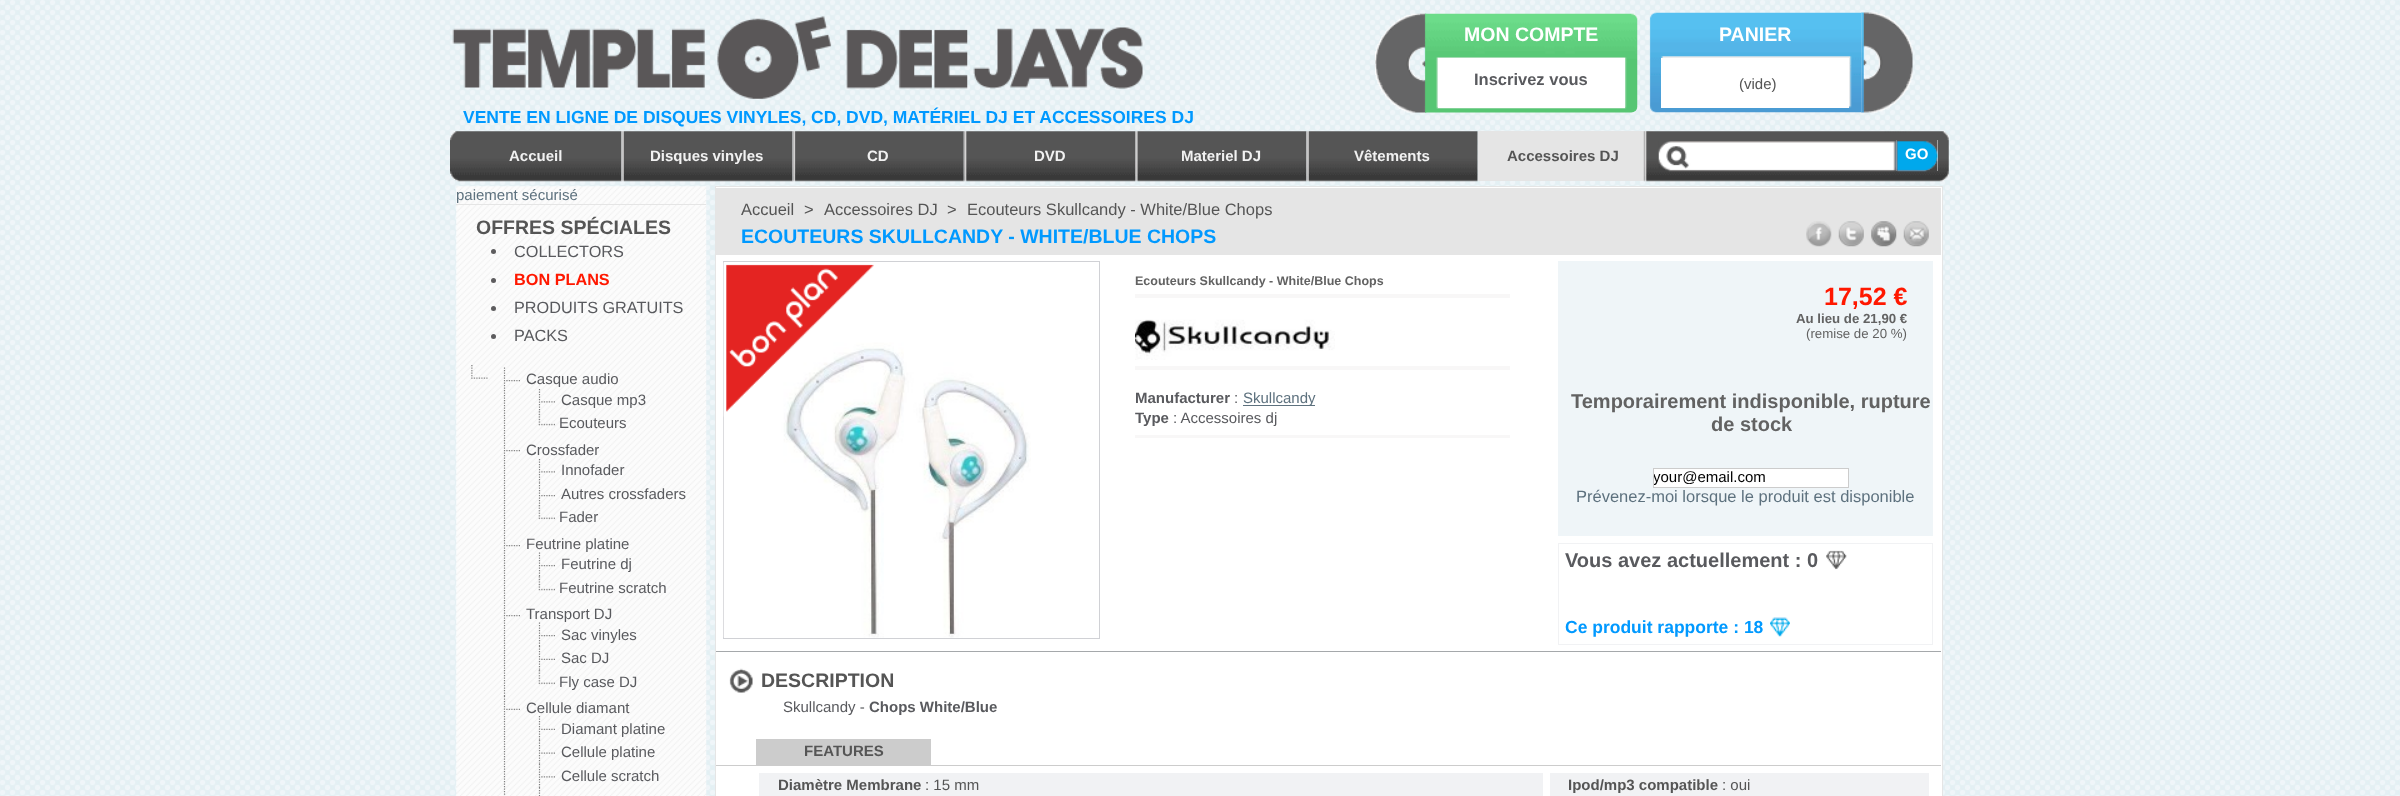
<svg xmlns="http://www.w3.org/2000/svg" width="2400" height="796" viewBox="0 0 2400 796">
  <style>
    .t1 { font: bold 19.5px Liberation Sans; fill: #fff; }
    .t2 { font: bold 16.5px Liberation Sans; fill: #595a5e; }
    .t3 { font: 15px Liberation Sans; fill: #555; }
    .t4 { font: bold 15px Liberation Sans; fill: #f1f1f1; }
    .t5 { font: bold 15px Liberation Sans; fill: #555; }
    .t6 { font: bold 15px Liberation Sans; fill: #fff; }
    .t7 { font: bold 17.5px Liberation Sans; fill: #09f; }
    .t8 { font: 15px Liberation Sans; fill: #5d717e; }
    .t9 { font: bold 19.5px Liberation Sans; fill: #555; }
    .t10 { font: 16.25px Liberation Sans; fill: #595a5e; }
    .t11 { font: bold 16.25px Liberation Sans; fill: #ff1800; }
    .t12 { font: 15px Liberation Sans; fill: #595a5e; }
    .t13 { font: 16.5px Liberation Sans; fill: #555; }
    .t14 { font: bold 19.5px Liberation Sans; fill: #09f; }
    .t15 { font: bold 12.5px Liberation Sans; fill: #626262; }
    .t16 { font: bold 15px Liberation Sans; fill: #595a5e; }
    .t17 { font: bold 25px Liberation Sans; fill: #ff1800; }
    .t18 { font: bold 13.25px Liberation Sans; fill: #626262; }
    .t19 { font: 13.25px Liberation Sans; fill: #626262; }
    .t20 { font: bold 20px Liberation Sans; fill: #626262; }
    .t21 { font: 15px Liberation Sans; fill: #000; }
    .t22 { font: 16.5px Liberation Sans; fill: #5d717e; }
    .t23 { font: bold 20px Liberation Sans; fill: #595a5e; }
  </style>
  <defs>
    <clipPath id="clip1"><rect x="1654" y="469" width="194" height="17"/></clipPath>
  </defs>
  <rect width="100%" height="100%" fill="#fff"/>
  <image x="0" y="0" width="2400" height="796" href="images/1.png"/>
  <image x="452" y="16" width="691" height="83" href="images/2.png"/>
  <image x="1375" y="13" width="52" height="100" href="images/3.png"/>
  <image x="1425" y="13" width="213" height="100" href="images/4.png"/>
  <text x="1464" y="41" class="t1">MON COMPTE</text>
  <rect x="1438" y="58" width="187" height="50" fill="#fff"/>
  <text x="1474" y="85" class="t2">Inscrivez vous</text>
  <image x="1649" y="12" width="213" height="101" href="images/5.png"/>
  <text x="1719" y="41" class="t1">PANIER</text>
  <rect x="1661" y="58" width="188" height="50" fill="#fff"/>
  <text x="1739" y="89" class="t3">(vide)</text>
  <image x="1861" y="12" width="52" height="101" href="images/6.png"/>
  <image x="450" y="131" width="172" height="51" href="images/7.png"/>
  <text x="509" y="161" class="t4">Accueil</text>
  <image x="621" y="131" width="172" height="51" href="images/8.png"/>
  <text x="650" y="161" class="t4">Disques vinyles</text>
  <image x="792" y="131" width="172" height="51" href="images/9.png"/>
  <text x="867" y="161" class="t4">CD</text>
  <image x="963" y="131" width="172" height="51" href="images/10.png"/>
  <text x="1034" y="161" class="t4">DVD</text>
  <image x="1135" y="131" width="172" height="51" href="images/11.png"/>
  <text x="1181" y="161" class="t4">Materiel DJ</text>
  <image x="1306" y="131" width="172" height="51" href="images/12.png"/>
  <text x="1354" y="161" class="t4">Vêtements</text>
  <rect x="1478" y="131" width="171" height="50" fill="#e5e5e5"/>
  <text x="1507" y="161" class="t5">Accessoires DJ</text>
  <image x="1643" y="131" width="306" height="51" href="images/13.png"/>
  <image x="1658" y="141" width="239" height="31" href="images/14.png"/>
  <rect x="1896" y="140" width="42" height="31" fill="#efefef"/>
  <image x="1896" y="140" width="42" height="32" href="images/15.png"/>
  <text x="1905" y="159" class="t6">GO</text>
  <text x="463" y="123" class="t7">VENTE EN LIGNE DE DISQUES VINYLES, CD, DVD, MATÉRIEL DJ ET ACCESSOIRES DJ</text>
  <image x="456" y="186" width="251" height="610" href="images/16.png"/>
  <text x="456" y="200" class="t8">paiement sécurisé</text>
  <rect x="456" y="204" width="250" height="1" fill="#e5e5e5"/>
  <text x="476" y="234" class="t9">OFFRES SPÉCIALES</text>
  <circle cx="493.5" cy="251.5" r="2.5" fill="#5d5c5e"/>
  <text x="514" y="257" class="t10">COLLECTORS</text>
  <circle cx="493.5" cy="280.5" r="2.5" fill="#5d5c5e"/>
  <text x="514" y="285" class="t11">BON PLANS</text>
  <circle cx="493.5" cy="308.5" r="2.5" fill="#5d5c5e"/>
  <text x="514" y="313" class="t10">PRODUITS GRATUITS</text>
  <circle cx="493.5" cy="336.5" r="2.5" fill="#5d5c5e"/>
  <text x="514" y="341" class="t10">PACKS</text>
  <image x="471" y="365" width="17" height="14" href="images/17.png"/>
  <image x="506" y="380" width="14" height="2" href="images/18.png"/>
  <path d="M504.5 367.5V437.5" fill="none" stroke="#808080" stroke-width="1.2" stroke-dasharray="1.25 1.25"/>
  <text x="526" y="384" class="t12">Casque audio</text>
  <image x="541" y="401" width="14" height="2" href="images/19.png"/>
  <path d="M539.5 389V411" fill="none" stroke="#808080" stroke-width="1.2" stroke-dasharray="1.25 1.25"/>
  <text x="561" y="405" class="t12">Casque mp3</text>
  <image x="538" y="411" width="17" height="15" href="images/20.png"/>
  <text x="559" y="428" class="t12">Ecouteurs</text>
  <image x="506" y="450" width="14" height="2" href="images/21.png"/>
  <path d="M504.5 437.5V532.5" fill="none" stroke="#808080" stroke-width="1.2" stroke-dasharray="1.25 1.25"/>
  <text x="526" y="455" class="t12">Crossfader</text>
  <image x="541" y="471" width="14" height="2" href="images/22.png"/>
  <path d="M539.5 459V482.5" fill="none" stroke="#808080" stroke-width="1.2" stroke-dasharray="1.25 1.25"/>
  <text x="561" y="475" class="t12">Innofader</text>
  <image x="541" y="495" width="14" height="2" href="images/23.png"/>
  <path d="M539.5 482.5V505" fill="none" stroke="#808080" stroke-width="1.2" stroke-dasharray="1.25 1.25"/>
  <text x="561" y="499" class="t12">Autres crossfaders</text>
  <image x="538" y="505" width="17" height="15" href="images/24.png"/>
  <text x="559" y="522" class="t12">Fader</text>
  <image x="506" y="545" width="14" height="2" href="images/25.png"/>
  <path d="M504.5 532.5V602.5" fill="none" stroke="#808080" stroke-width="1.2" stroke-dasharray="1.25 1.25"/>
  <path d="M539.5 552.5V576" fill="none" stroke="#808080" stroke-width="1.2" stroke-dasharray="1.25 1.25"/>
  <text x="526" y="549" class="t12">Feutrine platine</text>
  <image x="541" y="565" width="14" height="2" href="images/26.png"/>
  <text x="561" y="569" class="t12">Feutrine dj</text>
  <image x="538" y="576" width="17" height="15" href="images/27.png"/>
  <text x="559" y="593" class="t12">Feutrine scratch</text>
  <image x="506" y="615" width="14" height="2" href="images/28.png"/>
  <path d="M504.5 602.5V696" fill="none" stroke="#808080" stroke-width="1.2" stroke-dasharray="1.25 1.25"/>
  <path d="M539.5 622.5V646" fill="none" stroke="#808080" stroke-width="1.2" stroke-dasharray="1.25 1.25"/>
  <text x="526" y="619" class="t12">Transport DJ</text>
  <image x="541" y="635" width="14" height="2" href="images/29.png"/>
  <text x="561" y="640" class="t12">Sac vinyles</text>
  <image x="541" y="658" width="14" height="2" href="images/30.png"/>
  <path d="M539.5 646V670" fill="none" stroke="#808080" stroke-width="1.2" stroke-dasharray="1.25 1.25"/>
  <text x="561" y="663" class="t12">Sac DJ</text>
  <image x="538" y="670" width="17" height="15" href="images/31.png"/>
  <text x="559" y="687" class="t12">Fly case DJ</text>
  <image x="506" y="708" width="14" height="2" href="images/32.png"/>
  <path d="M504.5 696V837.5" fill="none" stroke="#808080" stroke-width="1.2" stroke-dasharray="1.25 1.25"/>
  <text x="526" y="713" class="t12">Cellule diamant</text>
  <image x="541" y="728" width="14" height="2" href="images/33.png"/>
  <path d="M539.5 716V740" fill="none" stroke="#808080" stroke-width="1.2" stroke-dasharray="1.25 1.25"/>
  <text x="561" y="734" class="t12">Diamant platine</text>
  <image x="541" y="752" width="14" height="2" href="images/34.png"/>
  <path d="M539.5 740V764" fill="none" stroke="#808080" stroke-width="1.2" stroke-dasharray="1.25 1.25"/>
  <text x="561" y="757" class="t12">Cellule platine</text>
  <image x="541" y="776" width="14" height="2" href="images/19.png"/>
  <path d="M539.5 764V787.5M539.5 787.5V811" fill="none" stroke="#808080" stroke-width="1.2" stroke-dasharray="1.25 1.25"/>
  <text x="561" y="781" class="t12">Cellule scratch</text>
  <rect x="715.5" y="186.5" width="1227" height="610" fill="#fff" stroke="#e5e5e5"/>
  <rect x="716" y="188" width="1225" height="67" fill="#e5e5e5"/>
  <text x="741" y="215" class="t13">Accueil</text>
  <text x="804" y="215" class="t13">&gt;</text>
  <text x="824" y="215" class="t13">Accessoires DJ</text>
  <text x="947" y="215" class="t13">&gt;</text>
  <text x="967" y="215" class="t13">Ecouteurs Skullcandy - White/Blue Chops</text>
  <image x="1806" y="221" width="26" height="26" href="images/35.png"/>
  <image x="1838" y="221" width="26" height="26" href="images/36.png"/>
  <image x="1871" y="221" width="26" height="26" href="images/37.png"/>
  <image x="1903" y="221" width="26" height="26" href="images/38.png"/>
  <text x="741" y="243" class="t14">ECOUTEURS SKULLCANDY - WHITE/BLUE CHOPS</text>
  <rect x="723.5" y="261.5" width="376" height="377" fill="none" stroke="#d0d1d5"/>
  <image x="723" y="262" width="308" height="376" href="images/39.png"/>
  <image x="723" y="262" width="151" height="155" href="images/40.png"/>
  <rect x="1135" y="294" width="375" height="4" fill="#f8f7f7"/>
  <text x="1135" y="285" class="t15">Ecouteurs Skullcandy - White/Blue Chops</text>
  <rect x="1135" y="366" width="375" height="4" fill="#f8f7f7"/>
  <image x="1135" y="319" width="200" height="41" href="images/41.png"/>
  <rect x="1135" y="435" width="375" height="3" fill="#f8f7f7"/>
  <text x="1135" y="403" class="t16">Manufacturer</text>
  <text x="1234" y="403" class="t12">:</text>
  <rect x="1243" y="405" width="72" height="1" fill="#5d717e"/>
  <text x="1243" y="403" class="t8">Skullcandy</text>
  <text x="1135" y="423" class="t16">Type</text>
  <text x="1173" y="423" class="t12">: Accessoires dj</text>
  <rect x="1558" y="261" width="375" height="275" fill="#eff5f8"/>
  <text x="1824" y="305" class="t17">17,52 €</text>
  <text x="1796" y="323" class="t18">Au lieu de 21,90 €</text>
  <text x="1806" y="338" class="t19">(remise de 20 %)</text>
  <text x="1571" y="408" class="t20">Temporairement indisponible, rupture</text>
  <text x="1711" y="431" class="t20">de stock</text>
  <rect x="1653.5" y="468.5" width="195" height="19" fill="#fff" stroke="#ccc"/>
  <g clip-path="url(#clip1)">
    <text x="1653" y="482" class="t21">your@email.com</text>
  </g>
  <text x="1576" y="502" class="t22">Prévenez-moi lorsque le produit est disponible</text>
  <rect x="1558.5" y="543.5" width="374" height="101" fill="none" stroke="#f1f2f4"/>
  <text x="1565" y="567" class="t23">Vous avez actuellement :</text>
  <text x="1807" y="567" class="t23">0</text>
  <image x="1826" y="550" width="21" height="20" href="images/42.png"/>
  <text x="1565" y="633" class="t7">Ce produit rapporte : 18</text>
  <image x="1770" y="617" width="20" height="20" href="images/43.png"/>
  <image x="729" y="668" width="24" height="25" href="images/44.png"/>
  <rect x="716" y="651" width="1225" height="1" fill="#a5a8ab"/>
  <text x="761" y="687" class="t9">DESCRIPTION</text>
  <text x="783" y="712" class="t12">Skullcandy -</text>
  <text x="869" y="712" class="t16">Chops White/Blue</text>
  <rect x="716" y="765" width="1225" height="1" fill="#ccc"/>
  <rect x="756" y="739" width="175" height="26" fill="#ccc"/>
  <text x="804" y="756" class="t5">FEATURES</text>
  <rect x="759" y="773" width="784" height="23" fill="#f1f2f4"/>
  <text x="778" y="790" class="t5">Diamètre Membrane</text>
  <text x="925" y="790" class="t3">: 15 mm</text>
  <rect x="1550" y="773" width="379" height="23" fill="#f1f2f4"/>
  <text x="1568" y="790" class="t5">Ipod/mp3 compatible</text>
  <text x="1722" y="790" class="t3">: oui</text>
</svg>
